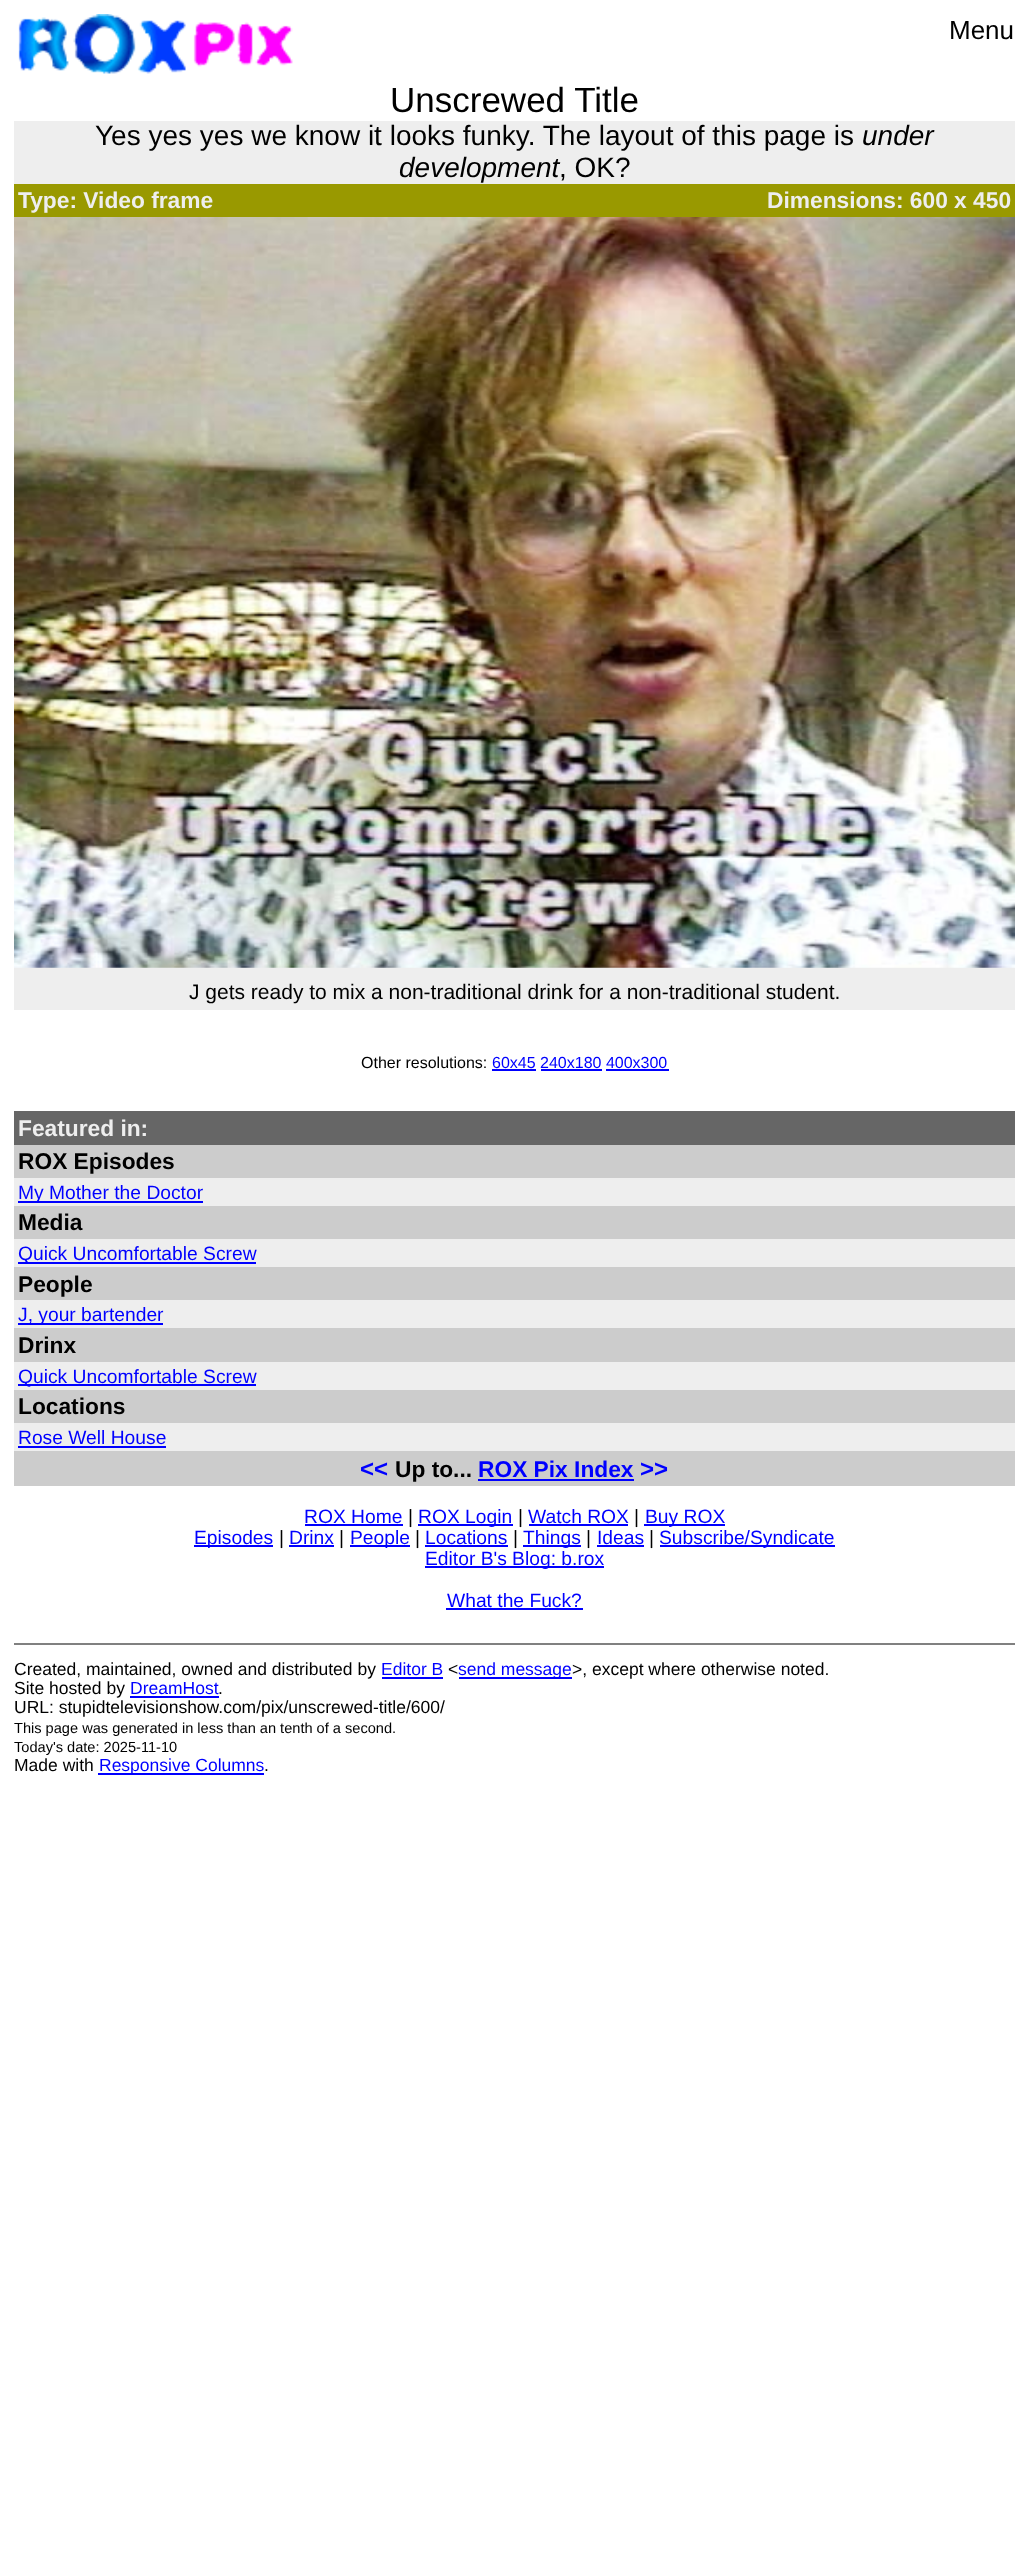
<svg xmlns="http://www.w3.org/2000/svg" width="1028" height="2552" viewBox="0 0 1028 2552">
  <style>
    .t1 { font: 26px Liberation Sans; fill: #000; }
    .t2 { font: 35px Liberation Sans; fill: #000; }
    .t3 { font: 28px Liberation Sans; fill: #000; }
    .t4 { font: italic 28px Liberation Sans; fill: #000; }
    .t5 { font: bold 22.75px Liberation Sans; fill: #eee; }
    .t6 { font: 21px Liberation Sans; fill: #000; }
    .t7 { font: 16px Liberation Sans; fill: #000; }
    .t8 { font: 16px Liberation Sans; fill: #00f; }
    .t9 { font: bold 22.75px Liberation Sans; fill: #000; }
    .t10 { font: 19.25px Liberation Sans; fill: #00f; }
    .t11 { font: bold 24px Liberation Sans; fill: #00f; }
    .t12 { font: bold 22.75px Liberation Sans; fill: #00f; }
    .t13 { font: 19.25px Liberation Sans; fill: #000; }
    .t14 { font: 17.5px Liberation Sans; fill: #000; }
    .t15 { font: 17.5px Liberation Sans; fill: #00f; }
    .t16 { font: 14.6px Liberation Sans; fill: #000; }
  </style>
  <rect width="100%" height="100%" fill="#fff"/>
  <image x="18" y="14" width="168" height="60" href="images/1.png"/>
  <image x="193" y="22" width="100" height="45" href="images/2.png"/>
  <text x="949" y="39" class="t1">Menu</text>
  <text x="390" y="112" class="t2">Unscrewed Title</text>
  <rect x="14" y="121" width="1001" height="63" fill="#eee"/>
  <text x="95" y="145" class="t3">Yes yes yes we know it looks funky. The layout of this page is</text>
  <text x="862" y="145" class="t4">under</text>
  <text x="399" y="177" class="t4">development</text>
  <text x="559" y="177" class="t3">, OK?</text>
  <rect x="14" y="184" width="1001" height="33" fill="#990"/>
  <text x="18" y="208" class="t5">Type: Video frame</text>
  <text x="767" y="208" class="t5">Dimensions: 600 x 450</text>
  <rect x="14" y="967" width="1001" height="43" fill="#eee"/>
  <image x="14" y="217" width="1001" height="751" href="images/3.png"/>
  <text x="189" y="999" class="t6">J gets ready to mix a non-traditional drink for a non-traditional student.</text>
  <text x="361" y="1068" class="t7">Other resolutions:</text>
  <text x="492" y="1068" class="t8">60x45 240x180 400x300</text>
  <rect x="492" y="1069" width="44" height="2" fill="#00f"/>
  <rect x="541" y="1069" width="61" height="2" fill="#00f"/>
  <rect x="606" y="1069" width="63" height="2" fill="#00f"/>
  <rect x="14" y="1111" width="1001" height="34" fill="#666"/>
  <text x="18" y="1136" class="t5">Featured in:</text>
  <rect x="14" y="1145" width="1001" height="33" fill="#ccc"/>
  <text x="18" y="1169" class="t9">ROX Episodes</text>
  <rect x="14" y="1178" width="1001" height="28" fill="#eee"/>
  <rect x="18" y="1201" width="185" height="2" fill="#00f"/>
  <text x="18" y="1199" class="t10">My Mother the Doctor</text>
  <rect x="14" y="1206" width="1001" height="33" fill="#ccc"/>
  <text x="18" y="1230" class="t9">Media</text>
  <rect x="14" y="1239" width="1001" height="28" fill="#eee"/>
  <rect x="18" y="1262" width="238" height="2" fill="#00f"/>
  <text x="18" y="1260" class="t10">Quick Uncomfortable Screw</text>
  <rect x="14" y="1267" width="1001" height="33" fill="#ccc"/>
  <text x="18" y="1292" class="t9">People</text>
  <rect x="14" y="1300" width="1001" height="28" fill="#eee"/>
  <rect x="18" y="1323" width="145" height="2" fill="#00f"/>
  <text x="18" y="1321" class="t10">J, your bartender</text>
  <rect x="14" y="1328" width="1001" height="34" fill="#ccc"/>
  <text x="18" y="1353" class="t9">Drinx</text>
  <rect x="14" y="1362" width="1001" height="28" fill="#eee"/>
  <rect x="18" y="1384" width="238" height="2" fill="#00f"/>
  <text x="18" y="1383" class="t10">Quick Uncomfortable Screw</text>
  <rect x="14" y="1390" width="1001" height="33" fill="#ccc"/>
  <text x="18" y="1414" class="t9">Locations</text>
  <rect x="14" y="1423" width="1001" height="28" fill="#eee"/>
  <text x="18" y="1444" class="t10">Rose Well House</text>
  <rect x="18" y="1446" width="148" height="2" fill="#00f"/>
  <rect x="14" y="1451" width="1001" height="35" fill="#ccc"/>
  <text x="360" y="1477" class="t11">&lt;&lt;</text>
  <text x="395" y="1477" class="t9">Up to...</text>
  <text x="478" y="1477" class="t12">ROX Pix Index</text>
  <rect x="478" y="1479" width="156" height="2" fill="#00f"/>
  <text x="640" y="1477" class="t11">&gt;&gt;</text>
  <text x="304" y="1523" class="t10">ROX Home</text>
  <rect x="305" y="1524" width="98" height="2" fill="#00f"/>
  <text x="408" y="1523" class="t13">|</text>
  <rect x="418" y="1524" width="95" height="2" fill="#00f"/>
  <text x="418" y="1523" class="t10">ROX Login</text>
  <text x="518" y="1523" class="t13">|</text>
  <text x="528" y="1523" class="t10">Watch ROX</text>
  <rect x="529" y="1524" width="99" height="2" fill="#00f"/>
  <text x="634" y="1523" class="t13">|</text>
  <rect x="644" y="1524" width="81" height="2" fill="#00f"/>
  <text x="645" y="1523" class="t10">Buy ROX</text>
  <rect x="194" y="1545" width="79" height="2" fill="#00f"/>
  <text x="194" y="1544" class="t10">Episodes</text>
  <text x="279" y="1544" class="t13">|</text>
  <text x="289" y="1544" class="t10">Drinx</text>
  <rect x="289" y="1545" width="45" height="2" fill="#00f"/>
  <text x="339" y="1544" class="t13">|</text>
  <rect x="350" y="1545" width="60" height="2" fill="#00f"/>
  <text x="350" y="1544" class="t10">People</text>
  <text x="415" y="1544" class="t13">|</text>
  <text x="425" y="1544" class="t10">Locations</text>
  <rect x="425" y="1545" width="83" height="2" fill="#00f"/>
  <text x="513" y="1544" class="t13">|</text>
  <rect x="523" y="1545" width="58" height="2" fill="#00f"/>
  <text x="523" y="1544" class="t10">Things</text>
  <text x="586" y="1544" class="t13">|</text>
  <text x="597" y="1544" class="t10">Ideas</text>
  <rect x="597" y="1545" width="47" height="2" fill="#00f"/>
  <text x="649" y="1544" class="t13">|</text>
  <rect x="660" y="1545" width="175" height="2" fill="#00f"/>
  <text x="659" y="1544" class="t10">Subscribe/Syndicate</text>
  <rect x="425" y="1566" width="179" height="2" fill="#00f"/>
  <text x="425" y="1565" class="t10">Editor B's Blog: b.rox</text>
  <text x="447" y="1607" class="t10">What the Fuck?</text>
  <rect x="446" y="1608" width="137" height="2" fill="#00f"/>
  <rect x="14" y="1643" width="1001" height="2" fill="#808080"/>
  <text x="14" y="1675" class="t14">Created, maintained, owned and distributed by</text>
  <text x="381" y="1675" class="t15">Editor B</text>
  <rect x="382" y="1677" width="61" height="2" fill="#00f"/>
  <text x="448" y="1675" class="t14">&lt;</text>
  <rect x="459" y="1677" width="113" height="2" fill="#00f"/>
  <text x="458" y="1675" class="t15">send message</text>
  <text x="572" y="1675" class="t14">&gt;, except where otherwise noted.</text>
  <text x="14" y="1694" class="t14">Site hosted by</text>
  <text x="130" y="1694" class="t15">DreamHost</text>
  <rect x="130" y="1696" width="89" height="2" fill="#00f"/>
  <text x="218" y="1694" class="t14">.</text>
  <text x="14" y="1713" class="t14">URL: stupidtelevisionshow.com/pix/unscrewed-title/600/</text>
  <text x="14" y="1733" class="t16">This page was generated in less than an tenth of a second.</text>
  <text x="14" y="1752" class="t16">Today's date: 2025-11-10</text>
  <text x="14" y="1771" class="t14">Made with</text>
  <rect x="98" y="1773" width="166" height="2" fill="#00f"/>
  <text x="99" y="1771" class="t15">Responsive Columns</text>
  <text x="264" y="1771" class="t14">.</text>
</svg>
